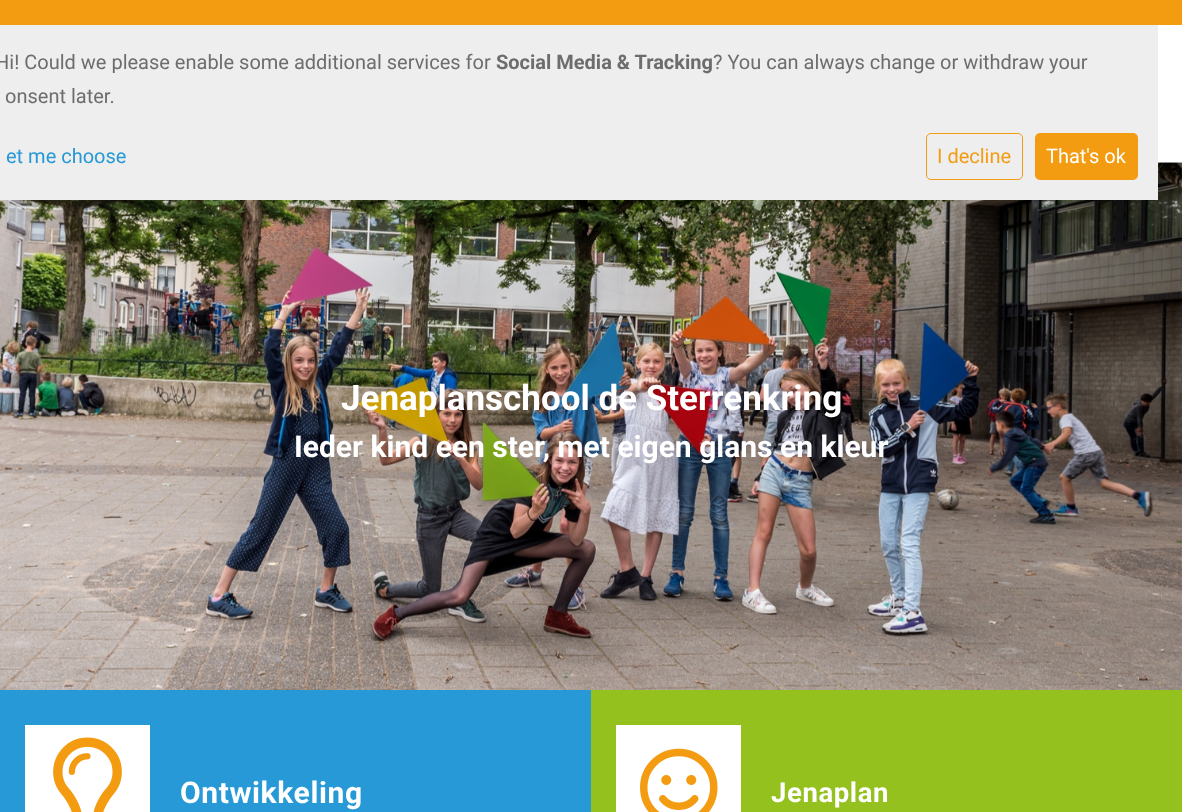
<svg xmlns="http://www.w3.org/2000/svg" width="1182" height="812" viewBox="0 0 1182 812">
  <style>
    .t1 { font: 20px Roboto; fill: #6d6d6d; }
    .t2 { font: bold 20px Roboto; fill: #6d6d6d; }
    .t3 { font: 20px Roboto; fill: #2699d6; }
    .t4 { font: 20px Roboto; fill: #f39c12; }
    .t5 { font: 20px Roboto; fill: #fff; }
    .t6 { font: bold 35px Roboto; fill: #fff; }
    .t7 { font: bold 30px Roboto; fill: #fff; }
    .t8 { font: bold 30px Roboto; letter-spacing: 0.6px; fill: #fff; }
    .t9 { font: bold 27.5px Roboto; letter-spacing: 0.6px; fill: #fff; }
  </style>
  <rect width="100%" height="100%" fill="#fff"/>
  <rect x="0" y="0" width="1182" height="25" fill="#f39c12"/>
  <image x="0" y="162" width="1182" height="528" href="images/1.png"/>
  <rect x="0" y="25" width="1158" height="175" fill="#eee"/>
  <text x="-5" y="69" class="t1">Hi! Could we please enable some additional services for</text>
  <text x="496" y="69" class="t2">Social Media &amp; Tracking</text>
  <text x="713" y="69" class="t1">? You can always change or withdraw your</text>
  <text x="5" y="103" class="t1">onsent later.</text>
  <text x="6" y="163" class="t3">et me choose</text>
  <rect x="926.5" y="133.5" width="96" height="46" rx="4.5" fill="none" stroke="#f39c12"/>
  <text x="937" y="163" class="t4">I decline</text>
  <rect x="1035" y="133" width="103" height="47" rx="5" fill="#f39c12"/>
  <text x="1046" y="163" class="t5">That's ok</text>
  <text x="341" y="410" class="t6">Jenaplanschool de Sterrenkring</text>
  <text x="294" y="457" class="t7">Ieder kind een ster, met eigen glans en kleur</text>
  <rect x="0" y="690" width="591" height="122" fill="#2699d6"/>
  <rect x="25" y="725" width="125" height="87" fill="#fff"/>
  <image x="53" y="737" width="69" height="75" href="images/2.png"/>
  <text x="180" y="803" class="t8">Ontwikkeling</text>
  <rect x="591" y="690" width="591" height="122" fill="#95c11f"/>
  <rect x="616" y="725" width="125" height="87" fill="#fff"/>
  <image x="640" y="748" width="78" height="64" href="images/3.png"/>
  <text x="771" y="802" class="t9">Jenaplan</text>
</svg>
